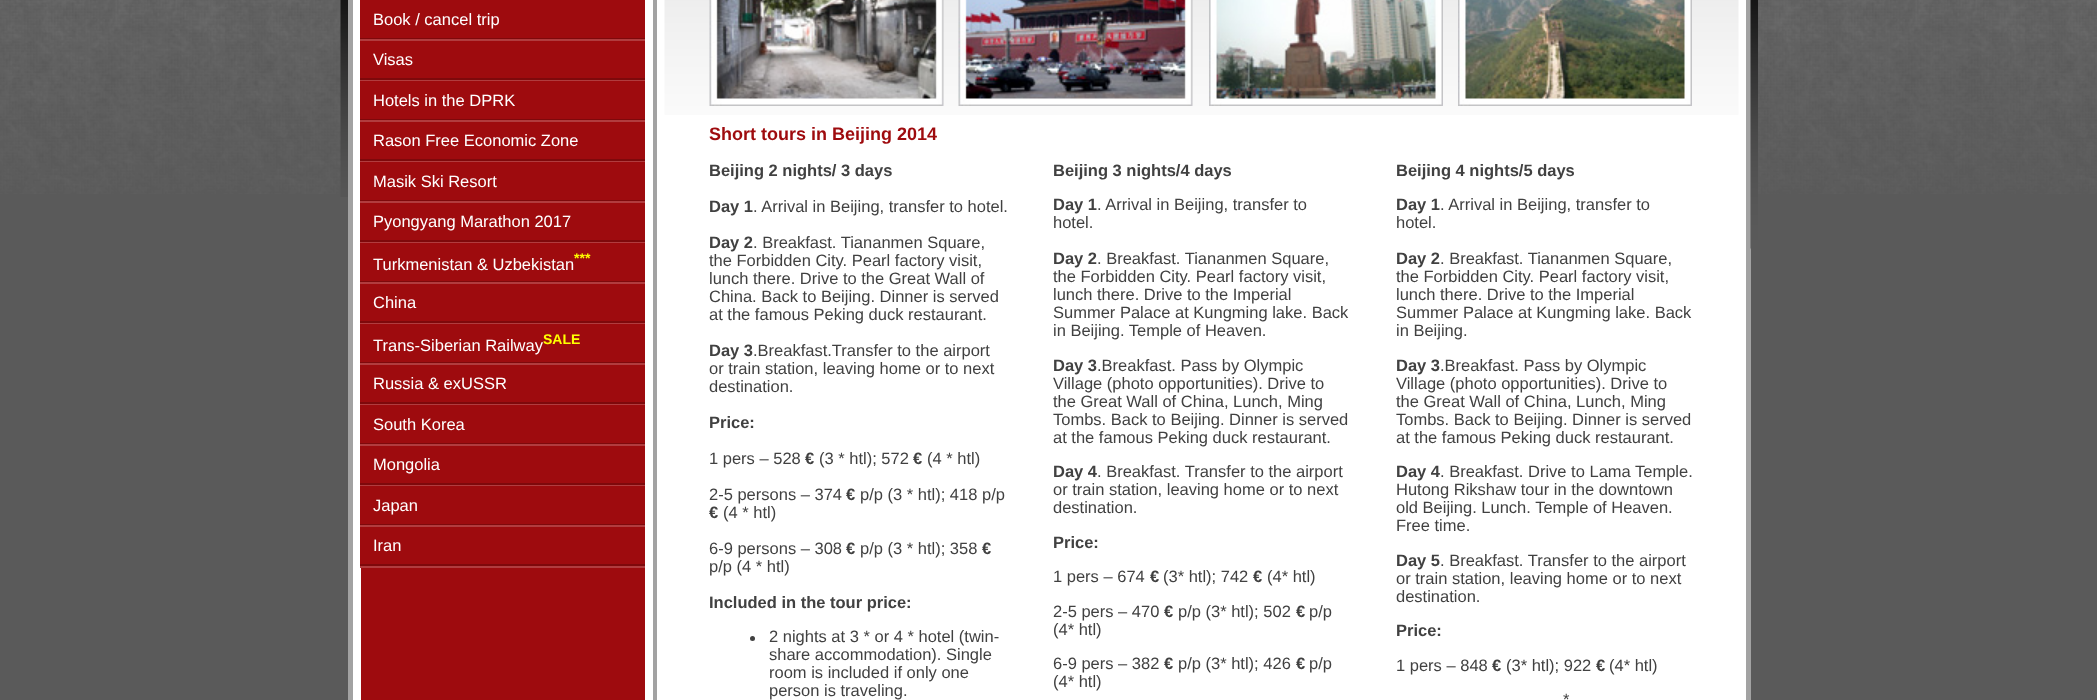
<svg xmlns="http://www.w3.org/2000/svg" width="2097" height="700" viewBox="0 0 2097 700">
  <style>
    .t1 { font: 16.5px Liberation Sans; fill: #fff; }
    .t2 { font: bold 14px Liberation Sans; fill: #ff0; }
    .t3 { font: bold 18px Liberation Sans; fill: #9e0b0e; }
    .t4 { font: bold 16.5px Liberation Sans; fill: #414141; }
    .t5 { font: 16.5px Liberation Sans; fill: #414141; }
  </style>
  <rect width="100%" height="100%" fill="#5a5a5a"/>
  <image x="0" y="0" width="2097" height="194" href="images/1.png"/>
  <image x="340" y="0" width="8" height="197" href="images/2.png"/>
  <rect x="348" y="0" width="1403" height="700" fill="#a2a2a2"/>
  <rect x="361" y="568" width="284" height="132" fill="#9e0b0e"/>
  <rect x="357" y="-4" width="292" height="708" fill="none" stroke="#fff" stroke-width="8"/>
  <rect x="360" y="0" width="285" height="38" fill="#9e0b0e"/>
  <text x="373" y="25" class="t1">Book / cancel trip</text>
  <rect x="360" y="38" width="285" height="1" fill="#7e090b"/>
  <rect x="360" y="39" width="285" height="2" fill="#b13c3e"/>
  <rect x="360" y="41" width="285" height="37" fill="#9e0b0e"/>
  <text x="373" y="65" class="t1">Visas</text>
  <rect x="360" y="78" width="285" height="2" fill="#7e090b"/>
  <rect x="360" y="80" width="285" height="1" fill="#b13c3e"/>
  <rect x="360" y="81" width="285" height="38" fill="#9e0b0e"/>
  <text x="373" y="106" class="t1">Hotels in the DPRK</text>
  <rect x="360" y="119" width="285" height="1" fill="#7e090b"/>
  <rect x="360" y="120" width="285" height="2" fill="#b13c3e"/>
  <rect x="360" y="122" width="285" height="37" fill="#9e0b0e"/>
  <text x="373" y="146" class="t1">Rason Free Economic Zone</text>
  <rect x="360" y="159" width="285" height="2" fill="#7e090b"/>
  <rect x="360" y="161" width="285" height="1" fill="#b13c3e"/>
  <rect x="360" y="162" width="285" height="38" fill="#9e0b0e"/>
  <text x="373" y="187" class="t1">Masik Ski Resort</text>
  <rect x="360" y="200" width="285" height="1" fill="#7e090b"/>
  <rect x="360" y="201" width="285" height="2" fill="#b13c3e"/>
  <rect x="360" y="203" width="285" height="37" fill="#9e0b0e"/>
  <text x="373" y="227" class="t1">Pyongyang Marathon 2017</text>
  <rect x="360" y="240" width="285" height="2" fill="#7e090b"/>
  <rect x="360" y="242" width="285" height="1" fill="#b13c3e"/>
  <rect x="360" y="243" width="285" height="38" fill="#9e0b0e"/>
  <text x="574" y="263" class="t2">***</text>
  <text x="373" y="270" class="t1">Turkmenistan &amp; Uzbekistan</text>
  <rect x="360" y="281" width="285" height="1" fill="#7e090b"/>
  <rect x="360" y="282" width="285" height="2" fill="#b13c3e"/>
  <rect x="360" y="284" width="285" height="37" fill="#9e0b0e"/>
  <text x="373" y="308" class="t1">China</text>
  <rect x="360" y="321" width="285" height="2" fill="#7e090b"/>
  <rect x="360" y="323" width="285" height="1" fill="#b13c3e"/>
  <rect x="360" y="324" width="285" height="38" fill="#9e0b0e"/>
  <text x="373" y="351" class="t1">Trans-Siberian Railway</text>
  <text x="543" y="344" class="t2">SALE</text>
  <rect x="360" y="362" width="285" height="1" fill="#7e090b"/>
  <rect x="360" y="363" width="285" height="2" fill="#b13c3e"/>
  <rect x="360" y="365" width="285" height="37" fill="#9e0b0e"/>
  <text x="373" y="389" class="t1">Russia &amp; exUSSR</text>
  <rect x="360" y="402" width="285" height="2" fill="#7e090b"/>
  <rect x="360" y="404" width="285" height="1" fill="#b13c3e"/>
  <rect x="360" y="405" width="285" height="38" fill="#9e0b0e"/>
  <text x="373" y="430" class="t1">South Korea</text>
  <rect x="360" y="443" width="285" height="1" fill="#7e090b"/>
  <rect x="360" y="444" width="285" height="2" fill="#b13c3e"/>
  <rect x="360" y="446" width="285" height="37" fill="#9e0b0e"/>
  <text x="373" y="470" class="t1">Mongolia</text>
  <rect x="360" y="483" width="285" height="2" fill="#7e090b"/>
  <rect x="360" y="485" width="285" height="1" fill="#b13c3e"/>
  <rect x="360" y="486" width="285" height="38" fill="#9e0b0e"/>
  <text x="373" y="511" class="t1">Japan</text>
  <rect x="360" y="524" width="285" height="1" fill="#7e090b"/>
  <rect x="360" y="525" width="285" height="2" fill="#b13c3e"/>
  <rect x="360" y="527" width="285" height="37" fill="#9e0b0e"/>
  <text x="373" y="551" class="t1">Iran</text>
  <rect x="360" y="564" width="285" height="2" fill="#7e090b"/>
  <rect x="360" y="566" width="285" height="2" fill="#b13c3e"/>
  <rect x="657" y="0" width="1089" height="700" fill="#fff"/>
  <image x="664" y="0" width="1075" height="115" href="images/3.png"/>
  <image x="709" y="0" width="235" height="106" href="images/4.png"/>
  <image x="958" y="0" width="235" height="106" href="images/5.png"/>
  <image x="1209" y="0" width="234" height="106" href="images/6.png"/>
  <image x="1458" y="0" width="234" height="106" href="images/7.png"/>
  <text x="709" y="140" class="t3">Short tours in Beijing 2014</text>
  <text x="709" y="176" class="t4">Beijing 2 nights/ 3 days</text>
  <text x="709" y="212" class="t4">Day 1</text>
  <text x="753" y="212" class="t5">. Arrival in Beijing, transfer to hotel.</text>
  <text x="709" y="248" class="t4">Day 2</text>
  <text x="753" y="248" class="t5">. Breakfast. Tiananmen Square,</text>
  <text x="709" y="266" class="t5">the Forbidden City. Pearl factory visit,</text>
  <text x="709" y="284" class="t5">lunch there. Drive to the Great Wall of</text>
  <text x="709" y="302" class="t5">China. Back to Beijing. Dinner is served</text>
  <text x="709" y="320" class="t5">at the famous Peking duck restaurant.</text>
  <text x="709" y="356" class="t4">Day 3</text>
  <text x="753" y="356" class="t5">.Breakfast.Transfer to the airport</text>
  <text x="709" y="374" class="t5">or train station, leaving home or to next</text>
  <text x="709" y="392" class="t5">destination.</text>
  <text x="709" y="428" class="t4">Price:</text>
  <text x="709" y="464" class="t5">1 pers – 528</text>
  <text x="805" y="464" class="t4">€</text>
  <text x="819" y="464" class="t5">(3 * htl); 572</text>
  <text x="913" y="464" class="t4">€</text>
  <text x="927" y="464" class="t5">(4 * htl)</text>
  <text x="709" y="500" class="t5">2-5 persons – 374</text>
  <text x="846" y="500" class="t4">€</text>
  <text x="860" y="500" class="t5">p/p (3 * htl); 418 p/p</text>
  <text x="709" y="518" class="t4">€</text>
  <text x="723" y="518" class="t5">(4 * htl)</text>
  <text x="709" y="554" class="t5">6-9 persons – 308</text>
  <text x="846" y="554" class="t4">€</text>
  <text x="860" y="554" class="t5">p/p (3 * htl); 358</text>
  <text x="982" y="554" class="t4">€</text>
  <text x="709" y="572" class="t5">p/p (4 * htl)</text>
  <text x="709" y="608" class="t4">Included in the tour price:</text>
  <circle cx="752.5" cy="638.5" r="2.5" fill="#414141"/>
  <text x="769" y="642" class="t5">2 nights at 3 * or 4 * hotel (twin-</text>
  <text x="769" y="660" class="t5">share accommodation). Single</text>
  <text x="769" y="678" class="t5">room is included if only one</text>
  <text x="769" y="696" class="t5">person is traveling.</text>
  <text x="1053" y="176" class="t4">Beijing 3 nights/4 days</text>
  <text x="1053" y="210" class="t4">Day 1</text>
  <text x="1097" y="210" class="t5">. Arrival in Beijing, transfer to</text>
  <text x="1053" y="228" class="t5">hotel.</text>
  <text x="1053" y="264" class="t4">Day 2</text>
  <text x="1097" y="264" class="t5">. Breakfast. Tiananmen Square,</text>
  <text x="1053" y="282" class="t5">the Forbidden City. Pearl factory visit,</text>
  <text x="1053" y="300" class="t5">lunch there. Drive to the Imperial</text>
  <text x="1053" y="318" class="t5">Summer Palace at Kungming lake. Back</text>
  <text x="1053" y="336" class="t5">in Beijing. Temple of Heaven.</text>
  <text x="1053" y="371" class="t4">Day 3</text>
  <text x="1097" y="371" class="t5">.Breakfast. Pass by Olympic</text>
  <text x="1053" y="389" class="t5">Village (photo opportunities). Drive to</text>
  <text x="1053" y="407" class="t5">the Great Wall of China, Lunch, Ming</text>
  <text x="1053" y="425" class="t5">Tombs. Back to Beijing. Dinner is served</text>
  <text x="1053" y="443" class="t5">at the famous Peking duck restaurant.</text>
  <text x="1053" y="477" class="t4">Day 4</text>
  <text x="1097" y="477" class="t5">. Breakfast. Transfer to the airport</text>
  <text x="1053" y="495" class="t5">or train station, leaving home or to next</text>
  <text x="1053" y="513" class="t5">destination.</text>
  <text x="1053" y="548" class="t4">Price:</text>
  <text x="1053" y="582" class="t5">1 pers – 674</text>
  <text x="1150" y="582" class="t4">€</text>
  <text x="1163" y="582" class="t5">(3* htl); 742</text>
  <text x="1253" y="582" class="t4">€</text>
  <text x="1267" y="582" class="t5">(4* htl)</text>
  <text x="1053" y="617" class="t5">2-5 pers – 470</text>
  <text x="1164" y="617" class="t4">€</text>
  <text x="1178" y="617" class="t5">p/p (3* htl); 502</text>
  <text x="1296" y="617" class="t4">€</text>
  <text x="1309" y="617" class="t5">p/p</text>
  <text x="1053" y="635" class="t5">(4* htl)</text>
  <text x="1053" y="669" class="t5">6-9 pers – 382</text>
  <text x="1164" y="669" class="t4">€</text>
  <text x="1178" y="669" class="t5">p/p (3* htl); 426</text>
  <text x="1296" y="669" class="t4">€</text>
  <text x="1309" y="669" class="t5">p/p</text>
  <text x="1053" y="687" class="t5">(4* htl)</text>
  <text x="1396" y="176" class="t4">Beijing 4 nights/5 days</text>
  <text x="1396" y="210" class="t4">Day 1</text>
  <text x="1440" y="210" class="t5">. Arrival in Beijing, transfer to</text>
  <text x="1396" y="228" class="t5">hotel.</text>
  <text x="1396" y="264" class="t4">Day 2</text>
  <text x="1440" y="264" class="t5">. Breakfast. Tiananmen Square,</text>
  <text x="1396" y="282" class="t5">the Forbidden City. Pearl factory visit,</text>
  <text x="1396" y="300" class="t5">lunch there. Drive to the Imperial</text>
  <text x="1396" y="318" class="t5">Summer Palace at Kungming lake. Back</text>
  <text x="1396" y="336" class="t5">in Beijing.</text>
  <text x="1396" y="371" class="t4">Day 3</text>
  <text x="1440" y="371" class="t5">.Breakfast. Pass by Olympic</text>
  <text x="1396" y="389" class="t5">Village (photo opportunities). Drive to</text>
  <text x="1396" y="407" class="t5">the Great Wall of China, Lunch, Ming</text>
  <text x="1396" y="425" class="t5">Tombs. Back to Beijing. Dinner is served</text>
  <text x="1396" y="443" class="t5">at the famous Peking duck restaurant.</text>
  <text x="1396" y="477" class="t4">Day 4</text>
  <text x="1440" y="477" class="t5">. Breakfast. Drive to Lama Temple.</text>
  <text x="1396" y="495" class="t5">Hutong Rikshaw tour in the downtown</text>
  <text x="1396" y="513" class="t5">old Beijing. Lunch. Temple of Heaven.</text>
  <text x="1396" y="531" class="t5">Free time.</text>
  <text x="1396" y="566" class="t4">Day 5</text>
  <text x="1440" y="566" class="t5">. Breakfast. Transfer to the airport</text>
  <text x="1396" y="584" class="t5">or train station, leaving home or to next</text>
  <text x="1396" y="602" class="t5">destination.</text>
  <text x="1396" y="636" class="t4">Price:</text>
  <text x="1396" y="671" class="t5">1 pers – 848</text>
  <text x="1492" y="671" class="t4">€</text>
  <text x="1506" y="671" class="t5">(3* htl); 922</text>
  <text x="1596" y="671" class="t4">€</text>
  <text x="1609" y="671" class="t5">(4* htl)</text>
  <text x="1563" y="705" class="t5">*</text>
  <image x="1750" y="0" width="8" height="249" href="images/8.png"/>
</svg>
